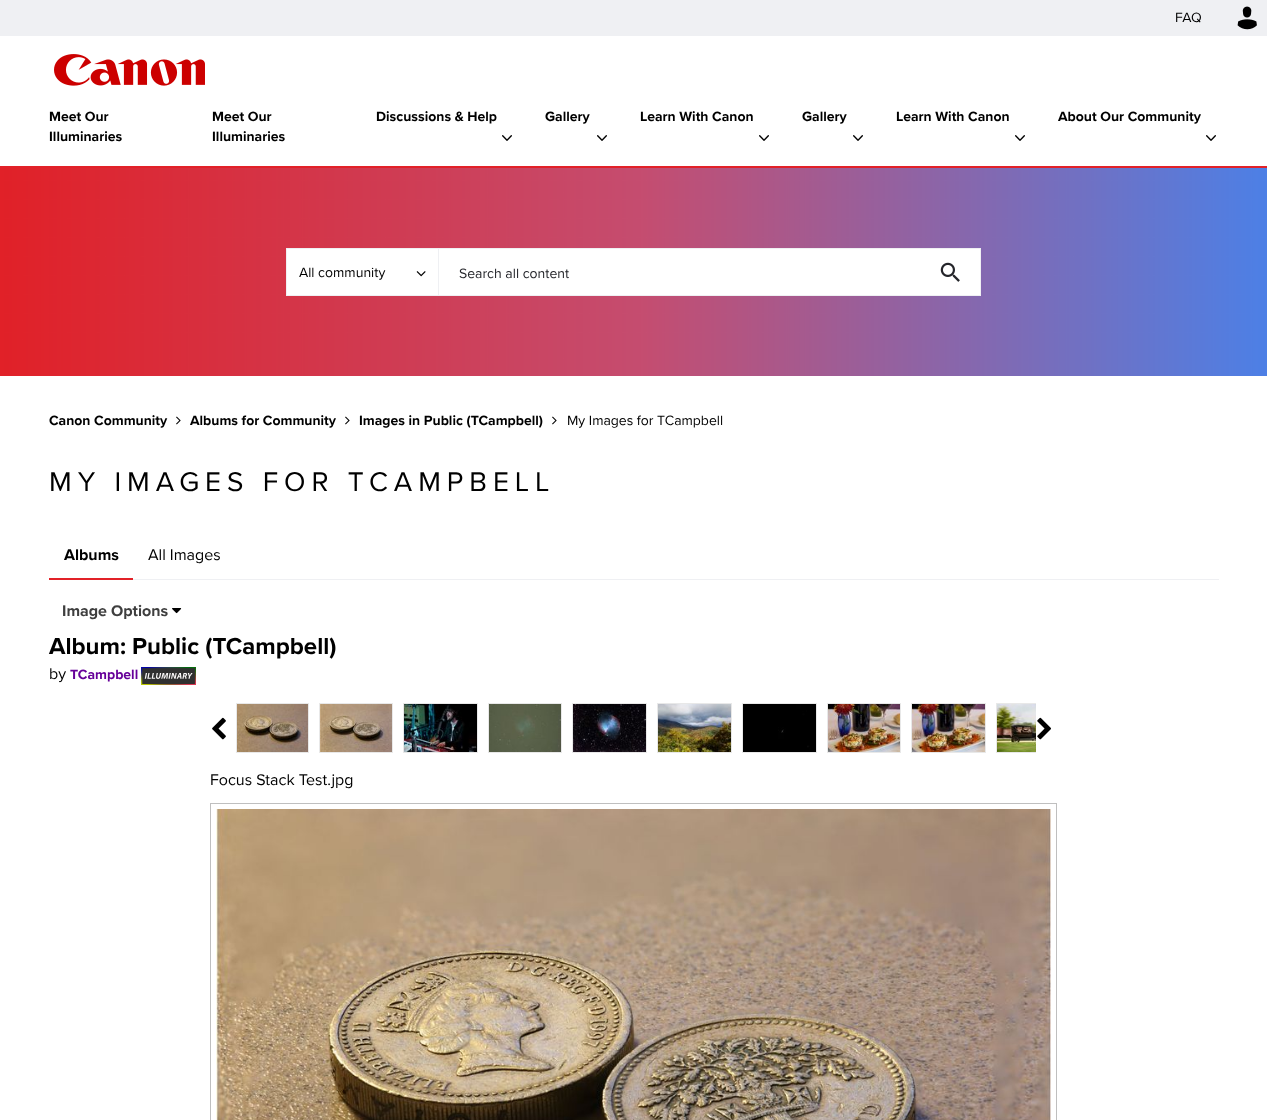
<svg xmlns="http://www.w3.org/2000/svg" width="1267" height="1120" viewBox="0 0 1267 1120">
  <style>
    .t1 { font: 14px Proxima Nova; fill: #000; }
    .t2 { font: bold 14px Proxima Nova; fill: #000; }
    .t3 { font: 14px Proxima Nova; fill: #24252a; }
    .t4 { font: 28px Proxima Nova; letter-spacing: 6px; fill: #000; }
    .t5 { font: bold 16px Proxima Nova; fill: #000; }
    .t6 { font: 16px Proxima Nova; fill: #000; }
    .t7 { font: bold 16px Proxima Nova; fill: #3e3e3e; }
    .t8 { font: bold 24px Proxima Nova; fill: #000; }
    .t9 { font: bold 14px Proxima Nova; fill: #609; }
  </style>
  <defs>
    <clipPath id="clip1"><rect x="231" y="698" width="805" height="58"/></clipPath>
  </defs>
  <rect width="100%" height="100%" fill="#fff"/>
  <rect x="0" y="0" width="1267" height="36" fill="#eff0f3"/>
  <text x="1175" y="22" class="t1">FAQ</text>
  <image x="1237" y="6" width="20" height="24" href="images/1.png"/>
  <image x="54" y="54" width="151" height="32" href="images/2.png"/>
  <rect x="0" y="166" width="1267" height="2" fill="#e22128"/>
  <text x="49" y="121" class="t2">Meet Our</text>
  <text x="49" y="141" class="t2">Illuminaries</text>
  <text x="212" y="121" class="t2">Meet Our</text>
  <text x="212" y="141" class="t2">Illuminaries</text>
  <text x="376" y="121" class="t2">Discussions &amp; Help</text>
  <image x="502" y="135" width="10" height="6" href="images/3.png"/>
  <text x="545" y="121" class="t2">Gallery</text>
  <image x="597" y="135" width="10" height="6" href="images/3.png"/>
  <text x="640" y="121" class="t2">Learn With Canon</text>
  <image x="759" y="135" width="10" height="6" href="images/3.png"/>
  <text x="802" y="121" class="t2">Gallery</text>
  <image x="853" y="135" width="10" height="6" href="images/3.png"/>
  <text x="896" y="121" class="t2">Learn With Canon</text>
  <image x="1015" y="135" width="10" height="6" href="images/3.png"/>
  <text x="1058" y="121" class="t2">About Our Community</text>
  <image x="1206" y="135" width="10" height="6" href="images/3.png"/>
  <image x="0" y="168" width="1267" height="208" href="images/4.png"/>
  <rect x="287" y="249" width="151" height="46" fill="#fff"/>
  <rect x="286" y="248" width="152" height="1" fill="#eff0f3"/>
  <rect x="286" y="295" width="152" height="1" fill="#eff0f3"/>
  <rect x="286" y="248" width="1" height="48" fill="#eff0f3"/>
  <text x="299" y="277" class="t1">All community</text>
  <image x="416" y="271" width="10" height="6" href="images/5.png"/>
  <rect x="438.5" y="248.5" width="542" height="47" fill="#fff" stroke="#eff0f3"/>
  <text x="459" y="278" class="t3">Search all content</text>
  <image x="940" y="262" width="20" height="20" href="images/6.png"/>
  <text x="49" y="425" class="t2">Canon Community</text>
  <image x="176" y="416" width="5" height="9" href="images/7.png"/>
  <text x="190" y="425" class="t2">Albums for Community</text>
  <image x="345" y="416" width="5" height="9" href="images/7.png"/>
  <text x="359" y="425" class="t2">Images in Public (TCampbell)</text>
  <image x="552" y="416" width="5" height="9" href="images/7.png"/>
  <text x="567" y="425" class="t1">My Images for TCampbell</text>
  <text x="49" y="491" class="t4">MY IMAGES FOR TCAMPBELL</text>
  <rect x="133" y="579" width="1086" height="1" fill="#eff0f3"/>
  <rect x="49" y="578" width="84" height="2" fill="#e22128"/>
  <text x="64" y="560" class="t5">Albums</text>
  <text x="148" y="560" class="t6">All Images</text>
  <text x="62" y="616" class="t7">Image Options</text>
  <image x="172" y="608" width="10" height="6" href="images/8.png"/>
  <text x="49" y="654" class="t8">Album: Public (TCampbell)</text>
  <text x="49" y="679" class="t6">by</text>
  <text x="70" y="679" class="t9">TCampbell</text>
  <image x="141" y="667" width="55" height="18" href="images/9.png"/>
  <image x="212" y="717" width="14" height="23" href="images/10.png"/>
  <rect x="236.5" y="703.5" width="72" height="49" fill="none" stroke="#e8e8e8"/>
  <image x="237" y="704" width="71" height="48" href="images/11.png"/>
  <rect x="319.5" y="703.5" width="73" height="49" fill="none" stroke="#e8e8e8"/>
  <image x="320" y="704" width="72" height="48" href="images/12.png"/>
  <rect x="403.5" y="703.5" width="74" height="49" fill="none" stroke="#e8e8e8"/>
  <image x="404" y="704" width="73" height="48" href="images/13.png"/>
  <rect x="488.5" y="703.5" width="73" height="49" fill="none" stroke="#e8e8e8"/>
  <image x="489" y="704" width="72" height="48" href="images/14.png"/>
  <rect x="572.5" y="703.5" width="74" height="49" fill="none" stroke="#e8e8e8"/>
  <image x="573" y="704" width="73" height="48" href="images/15.png"/>
  <rect x="657.5" y="703.5" width="74" height="49" fill="none" stroke="#e8e8e8"/>
  <image x="658" y="704" width="73" height="48" href="images/16.png"/>
  <rect x="742.5" y="703.5" width="74" height="49" fill="none" stroke="#e8e8e8"/>
  <image x="743" y="704" width="73" height="48" href="images/17.png"/>
  <rect x="827.5" y="703.5" width="73" height="49" fill="none" stroke="#e8e8e8"/>
  <image x="828" y="704" width="72" height="48" href="images/18.png"/>
  <rect x="911.5" y="703.5" width="74" height="49" fill="none" stroke="#e8e8e8"/>
  <image x="912" y="704" width="73" height="48" href="images/19.png"/>
  <g clip-path="url(#clip1)">
    <rect x="996.5" y="703.5" width="74" height="49" fill="none" stroke="#e8e8e8"/>
  </g>
  <image x="997" y="704" width="39" height="48" href="images/20.png"/>
  <image x="1037" y="717" width="14" height="23" href="images/21.png"/>
  <text x="210" y="785" class="t6">Focus Stack Test.jpg</text>
  <rect x="210.5" y="803.5" width="846" height="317" fill="none" stroke="#bfbfbf"/>
  <image x="216" y="809" width="835" height="311" href="images/22.png"/>
</svg>
